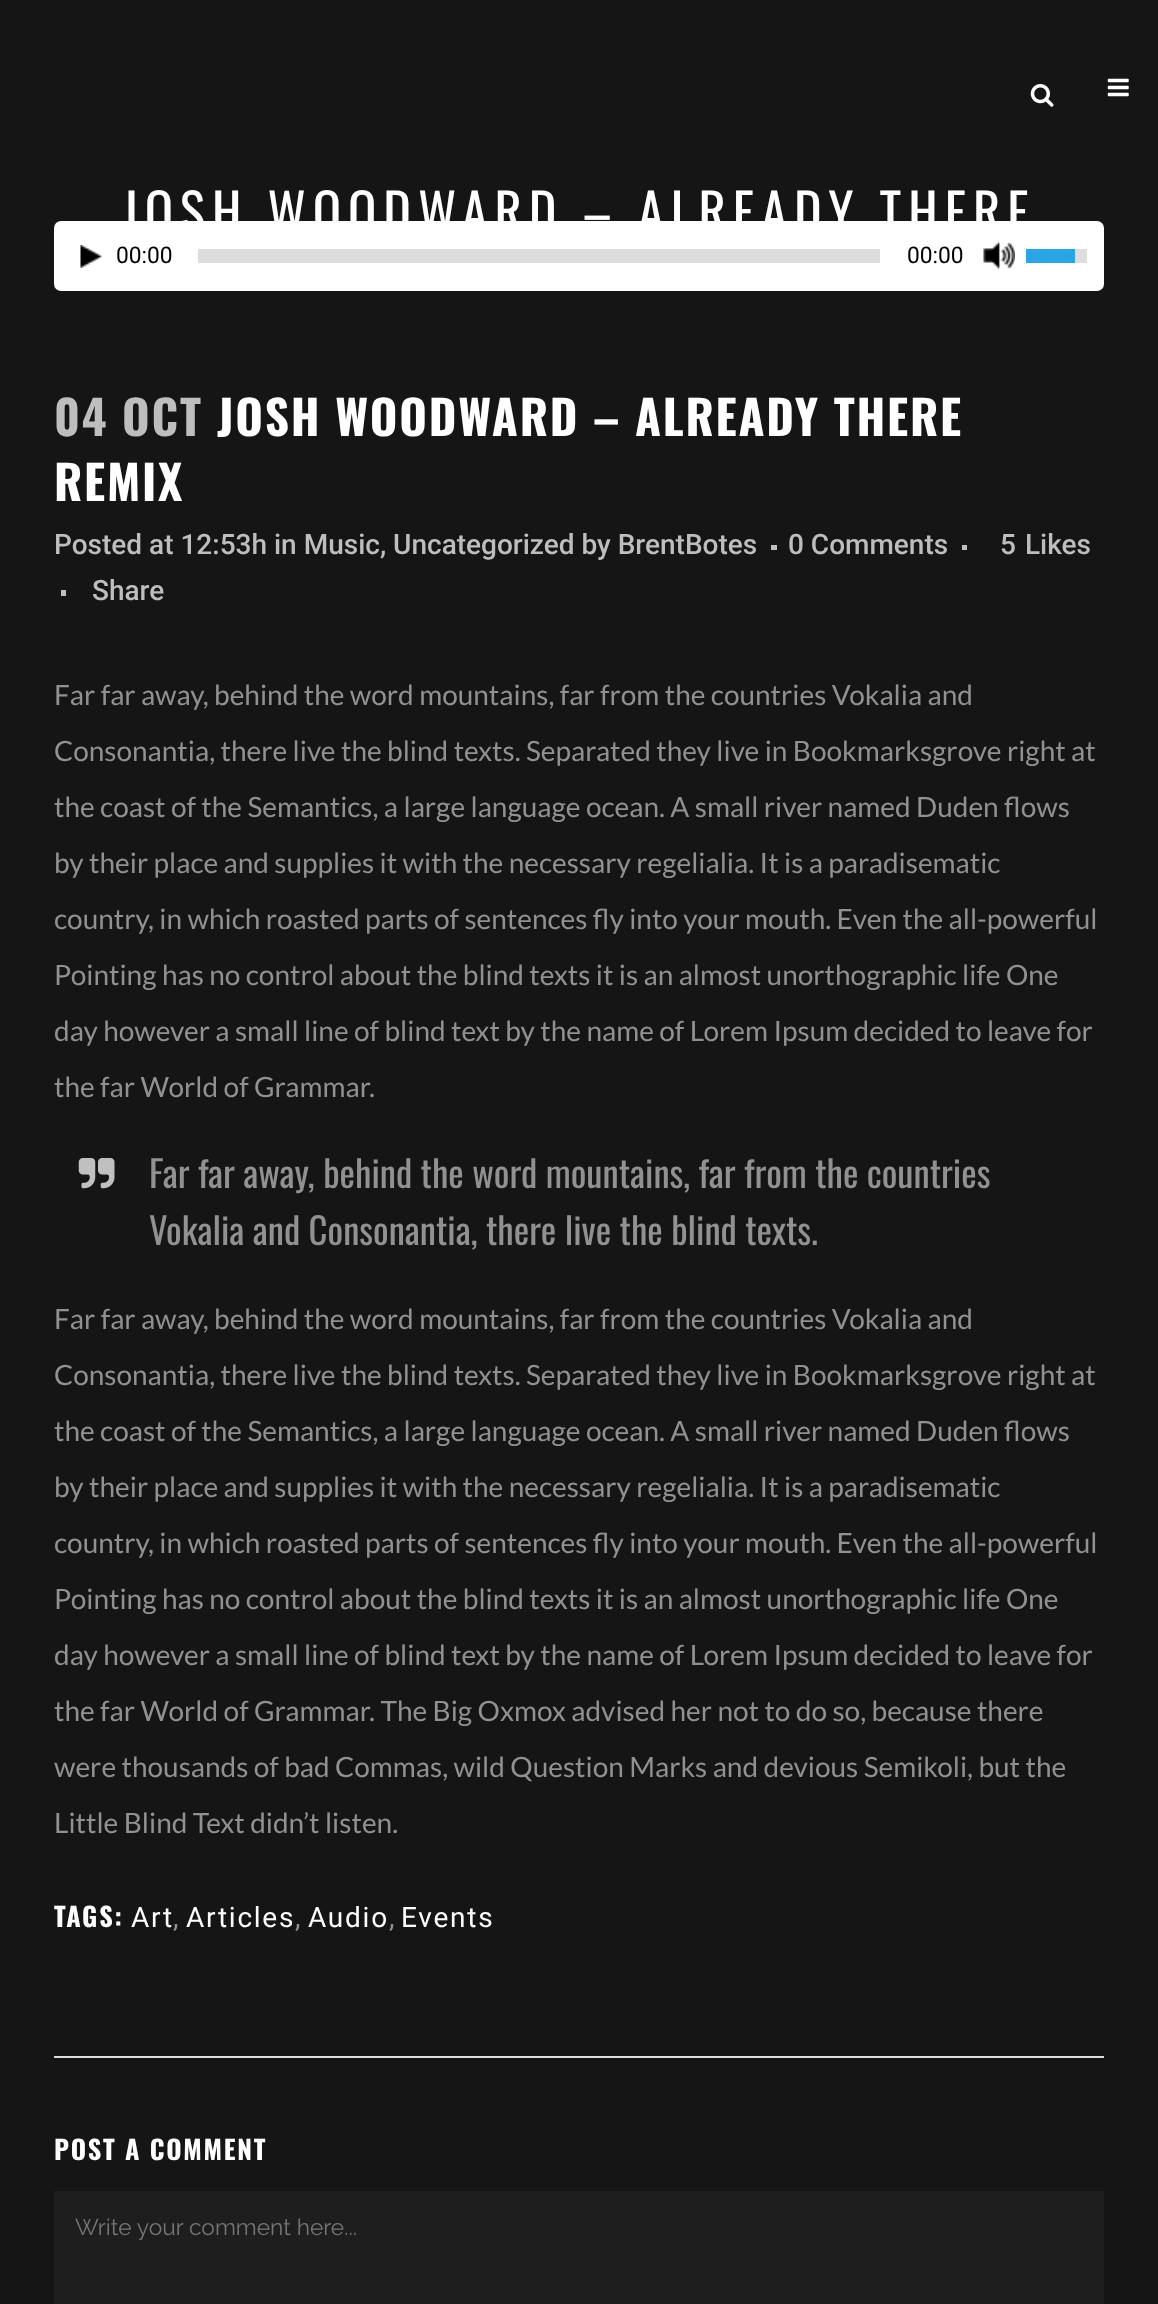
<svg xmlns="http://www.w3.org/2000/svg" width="1158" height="2304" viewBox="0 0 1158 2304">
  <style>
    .t1 { font: 52.5px Oswald; letter-spacing: 7px; fill: #fff; }
    .t2 { font: 22.75px Roboto; fill: #000; }
    .t3 { font: bold 47.25px Oswald; letter-spacing: 1.75px; fill: #bebebe; }
    .t4 { font: bold 47.25px Oswald; letter-spacing: 1.75px; fill: #fff; }
    .t5 { font: 500 28px Roboto; fill: #bebebe; }
    .t6 { font: 28px Lato; fill: #919191; }
    .t7 { font: 36.75px Oswald; fill: #919191; }
    .t8 { font: bold 26.25px Oswald; letter-spacing: 1.75px; fill: #fff; }
    .t9 { font: 28px Roboto; letter-spacing: 1.75px; fill: #fff; }
    .t10 { font: 28px Roboto; fill: #919191; }
    .t11 { font: 22.75px Raleway; fill: #757575; }
  </style>
  <rect width="100%" height="100%" fill="#151515"/>
  <image x="1030" y="84" width="24" height="23" href="images/1.png"/>
  <image x="1107" y="78" width="22" height="19" href="images/2.png"/>
  <rect x="54" y="221" width="1050" height="70" rx="7" fill="#fff"/>
  <text x="122" y="233" class="t1">JOSH WOODWARD – ALREADY THERE</text>
  <image x="80" y="245" width="22" height="23" href="images/3.png"/>
  <text x="116" y="263" class="t2">00:00</text>
  <rect x="198" y="249" width="682" height="14" fill="#ddd"/>
  <text x="907" y="263" class="t2">00:00</text>
  <image x="983" y="241" width="32" height="29" href="images/4.png"/>
  <rect x="1026" y="249" width="49" height="14" fill="#29a6e3"/>
  <rect x="1075" y="249" width="12" height="14" fill="#ddd"/>
  <text x="54" y="436" class="t3">04 OCT</text>
  <text x="217" y="436" class="t4">JOSH WOODWARD – ALREADY THERE</text>
  <text x="54" y="501" class="t4">REMIX</text>
  <text x="54" y="554" class="t5">Posted at 12:53h in Music, Uncategorized by BrentBotes</text>
  <rect x="771" y="545" width="6" height="5" fill="#bebebe"/>
  <text x="788" y="554" class="t5">0 Comments</text>
  <rect x="962" y="545" width="5" height="5" fill="#bebebe"/>
  <text x="1000" y="554" class="t5">5</text>
  <text x="1025" y="554" class="t5">Likes</text>
  <rect x="61" y="590" width="5" height="6" fill="#bebebe"/>
  <text x="92" y="600" class="t5">Share</text>
  <text x="54" y="705" class="t6">Far far away, behind the word mountains, far from the countries Vokalia and</text>
  <text x="54" y="761" class="t6">Consonantia, there live the blind texts. Separated they live in Bookmarksgrove right at</text>
  <text x="54" y="817" class="t6">the coast of the Semantics, a large language ocean. A small river named Duden flows</text>
  <text x="54" y="873" class="t6">by their place and supplies it with the necessary regelialia. It is a paradisematic</text>
  <text x="54" y="929" class="t6">country, in which roasted parts of sentences fly into your mouth. Even the all-powerful</text>
  <text x="54" y="985" class="t6">Pointing has no control about the blind texts it is an almost unorthographic life One</text>
  <text x="54" y="1041" class="t6">day however a small line of blind text by the name of Lorem Ipsum decided to leave for</text>
  <text x="54" y="1097" class="t6">the far World of Grammar.</text>
  <image x="78" y="1158" width="37" height="31" href="images/5.png"/>
  <text x="149" y="1188" class="t7">Far far away, behind the word mountains, far from the countries</text>
  <text x="149" y="1245" class="t7">Vokalia and Consonantia, there live the blind texts.</text>
  <text x="54" y="1329" class="t6">Far far away, behind the word mountains, far from the countries Vokalia and</text>
  <text x="54" y="1385" class="t6">Consonantia, there live the blind texts. Separated they live in Bookmarksgrove right at</text>
  <text x="54" y="1441" class="t6">the coast of the Semantics, a large language ocean. A small river named Duden flows</text>
  <text x="54" y="1497" class="t6">by their place and supplies it with the necessary regelialia. It is a paradisematic</text>
  <text x="54" y="1553" class="t6">country, in which roasted parts of sentences fly into your mouth. Even the all-powerful</text>
  <text x="54" y="1609" class="t6">Pointing has no control about the blind texts it is an almost unorthographic life One</text>
  <text x="54" y="1665" class="t6">day however a small line of blind text by the name of Lorem Ipsum decided to leave for</text>
  <text x="54" y="1721" class="t6">the far World of Grammar. The Big Oxmox advised her not to do so, because there</text>
  <text x="54" y="1777" class="t6">were thousands of bad Commas, wild Question Marks and devious Semikoli, but the</text>
  <text x="54" y="1833" class="t6">Little Blind Text didn’t listen.</text>
  <text x="54" y="1927" class="t8">TAGS:</text>
  <text x="131" y="1927" class="t9">Art</text>
  <text x="173" y="1927" class="t10">,</text>
  <text x="186" y="1927" class="t9">Articles</text>
  <text x="295" y="1927" class="t10">,</text>
  <text x="308" y="1927" class="t9">Audio</text>
  <text x="389" y="1927" class="t10">,</text>
  <text x="401" y="1927" class="t9">Events</text>
  <rect x="54" y="2056" width="1050" height="2" fill="#ddd"/>
  <text x="54" y="2160" class="t8">POST A COMMENT</text>
  <rect x="54" y="2191" width="1050" height="113" fill="#1e1e1e"/>
  <text x="75" y="2235" class="t11">Write your comment here...</text>
</svg>
